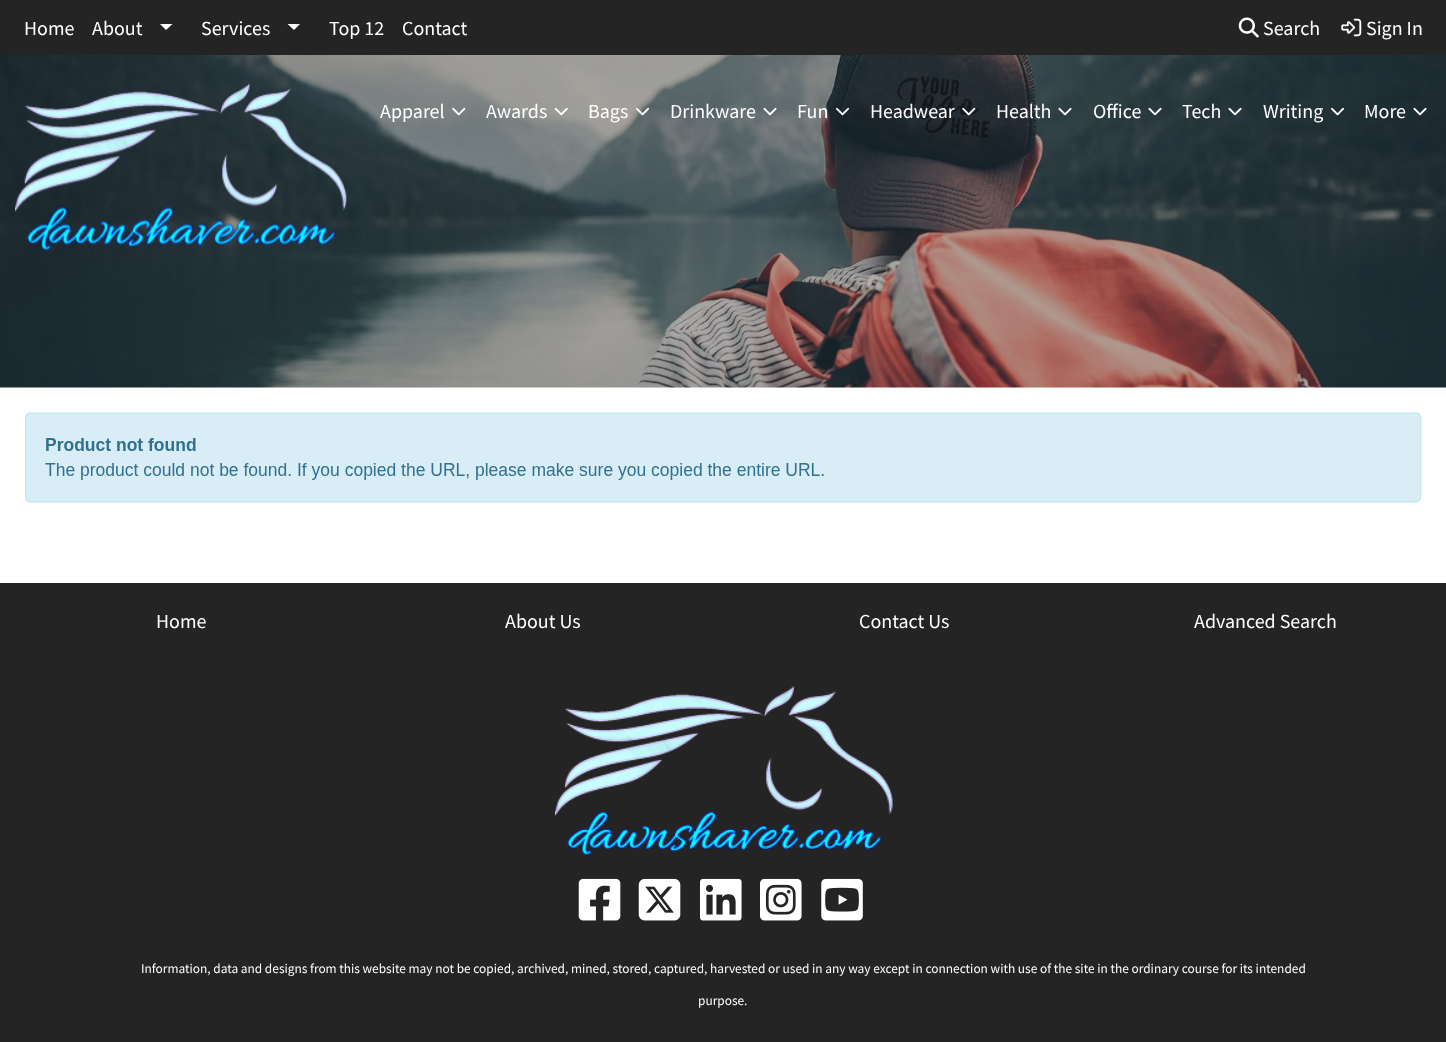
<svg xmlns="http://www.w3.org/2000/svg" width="1446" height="1042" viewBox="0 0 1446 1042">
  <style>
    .t1 { font: 20px Source Sans Pro; fill: #fff; }
    .t2 { font: 13.33px Source Sans Pro; fill: #fff; }
  </style>
  <rect width="100%" height="100%" fill="#fff"/>
  <rect x="0" y="0" width="1446" height="55" fill="#242424"/>
  <text x="24" y="35" class="t1">Home</text>
  <text x="92" y="35" class="t1">About</text>
  <path d="M160 24H172.5L166 30Z" fill="#fff"/>
  <text x="201" y="35" class="t1">Services</text>
  <path d="M287.5 24H300L294 30Z" fill="#fff"/>
  <text x="329" y="35" class="t1">Top 12</text>
  <text x="402" y="35" class="t1">Contact</text>
  <image x="1238" y="17" width="21" height="21" href="images/1.png"/>
  <text x="1263" y="35" class="t1">Search</text>
  <image x="1341" y="18" width="21" height="19" href="images/2.png"/>
  <text x="1366" y="35" class="t1">Sign In</text>
  <image x="0" y="55" width="1446" height="333" href="images/15.png"/>
  <image x="15" y="83" width="332" height="168" href="images/3.png"/>
  <text x="380" y="118" class="t1">Apparel</text>
  <image x="452" y="107" width="14" height="9" href="images/4.png"/>
  <text x="486" y="118" class="t1">Awards</text>
  <image x="554" y="107" width="14" height="9" href="images/5.png"/>
  <text x="588" y="118" class="t1">Bags</text>
  <image x="636" y="107" width="13" height="9" href="images/6.png"/>
  <text x="670" y="118" class="t1">Drinkware</text>
  <image x="763" y="107" width="14" height="9" href="images/7.png"/>
  <text x="797" y="118" class="t1">Fun</text>
  <image x="836" y="107" width="13" height="9" href="images/8.png"/>
  <text x="870" y="118" class="t1">Headwear</text>
  <image x="962" y="107" width="14" height="9" href="images/9.png"/>
  <text x="996" y="118" class="t1">Health</text>
  <image x="1058" y="107" width="14" height="9" href="images/10.png"/>
  <text x="1093" y="118" class="t1">Office</text>
  <image x="1148" y="107" width="14" height="9" href="images/11.png"/>
  <text x="1182" y="118" class="t1">Tech</text>
  <image x="1228" y="107" width="14" height="9" href="images/12.png"/>
  <text x="1263" y="118" class="t1">Writing</text>
  <image x="1331" y="107" width="13" height="9" href="images/13.png"/>
  <text x="1364" y="118" class="t1">More</text>
  <image x="1413" y="107" width="14" height="9" href="images/14.png"/>
  <image x="25" y="412" width="1397" height="91" href="images/16.png"/>
  <rect x="0" y="583" width="1446" height="459" fill="#242424"/>
  <text x="156" y="628" class="t1">Home</text>
  <text x="505" y="628" class="t1">About Us</text>
  <text x="859" y="628" class="t1">Contact Us</text>
  <text x="1194" y="628" class="t1">Advanced Search</text>
  <image x="555" y="686" width="338" height="170" href="images/17.png"/>
  <image x="578" y="878" width="43" height="43" href="images/18.png"/>
  <image x="638" y="878" width="43" height="43" href="images/19.png"/>
  <image x="700" y="878" width="42" height="43" href="images/20.png"/>
  <image x="760" y="878" width="42" height="43" href="images/21.png"/>
  <image x="821" y="878" width="42" height="43" href="images/22.png"/>
  <text x="141" y="973" class="t2">Information, data and designs from this website may not be copied, archived, mined, stored, captured, harvested or used in any way except in connection with use of the site in the ordinary course for its intended</text>
  <text x="698" y="1005" class="t2">purpose.</text>
</svg>
